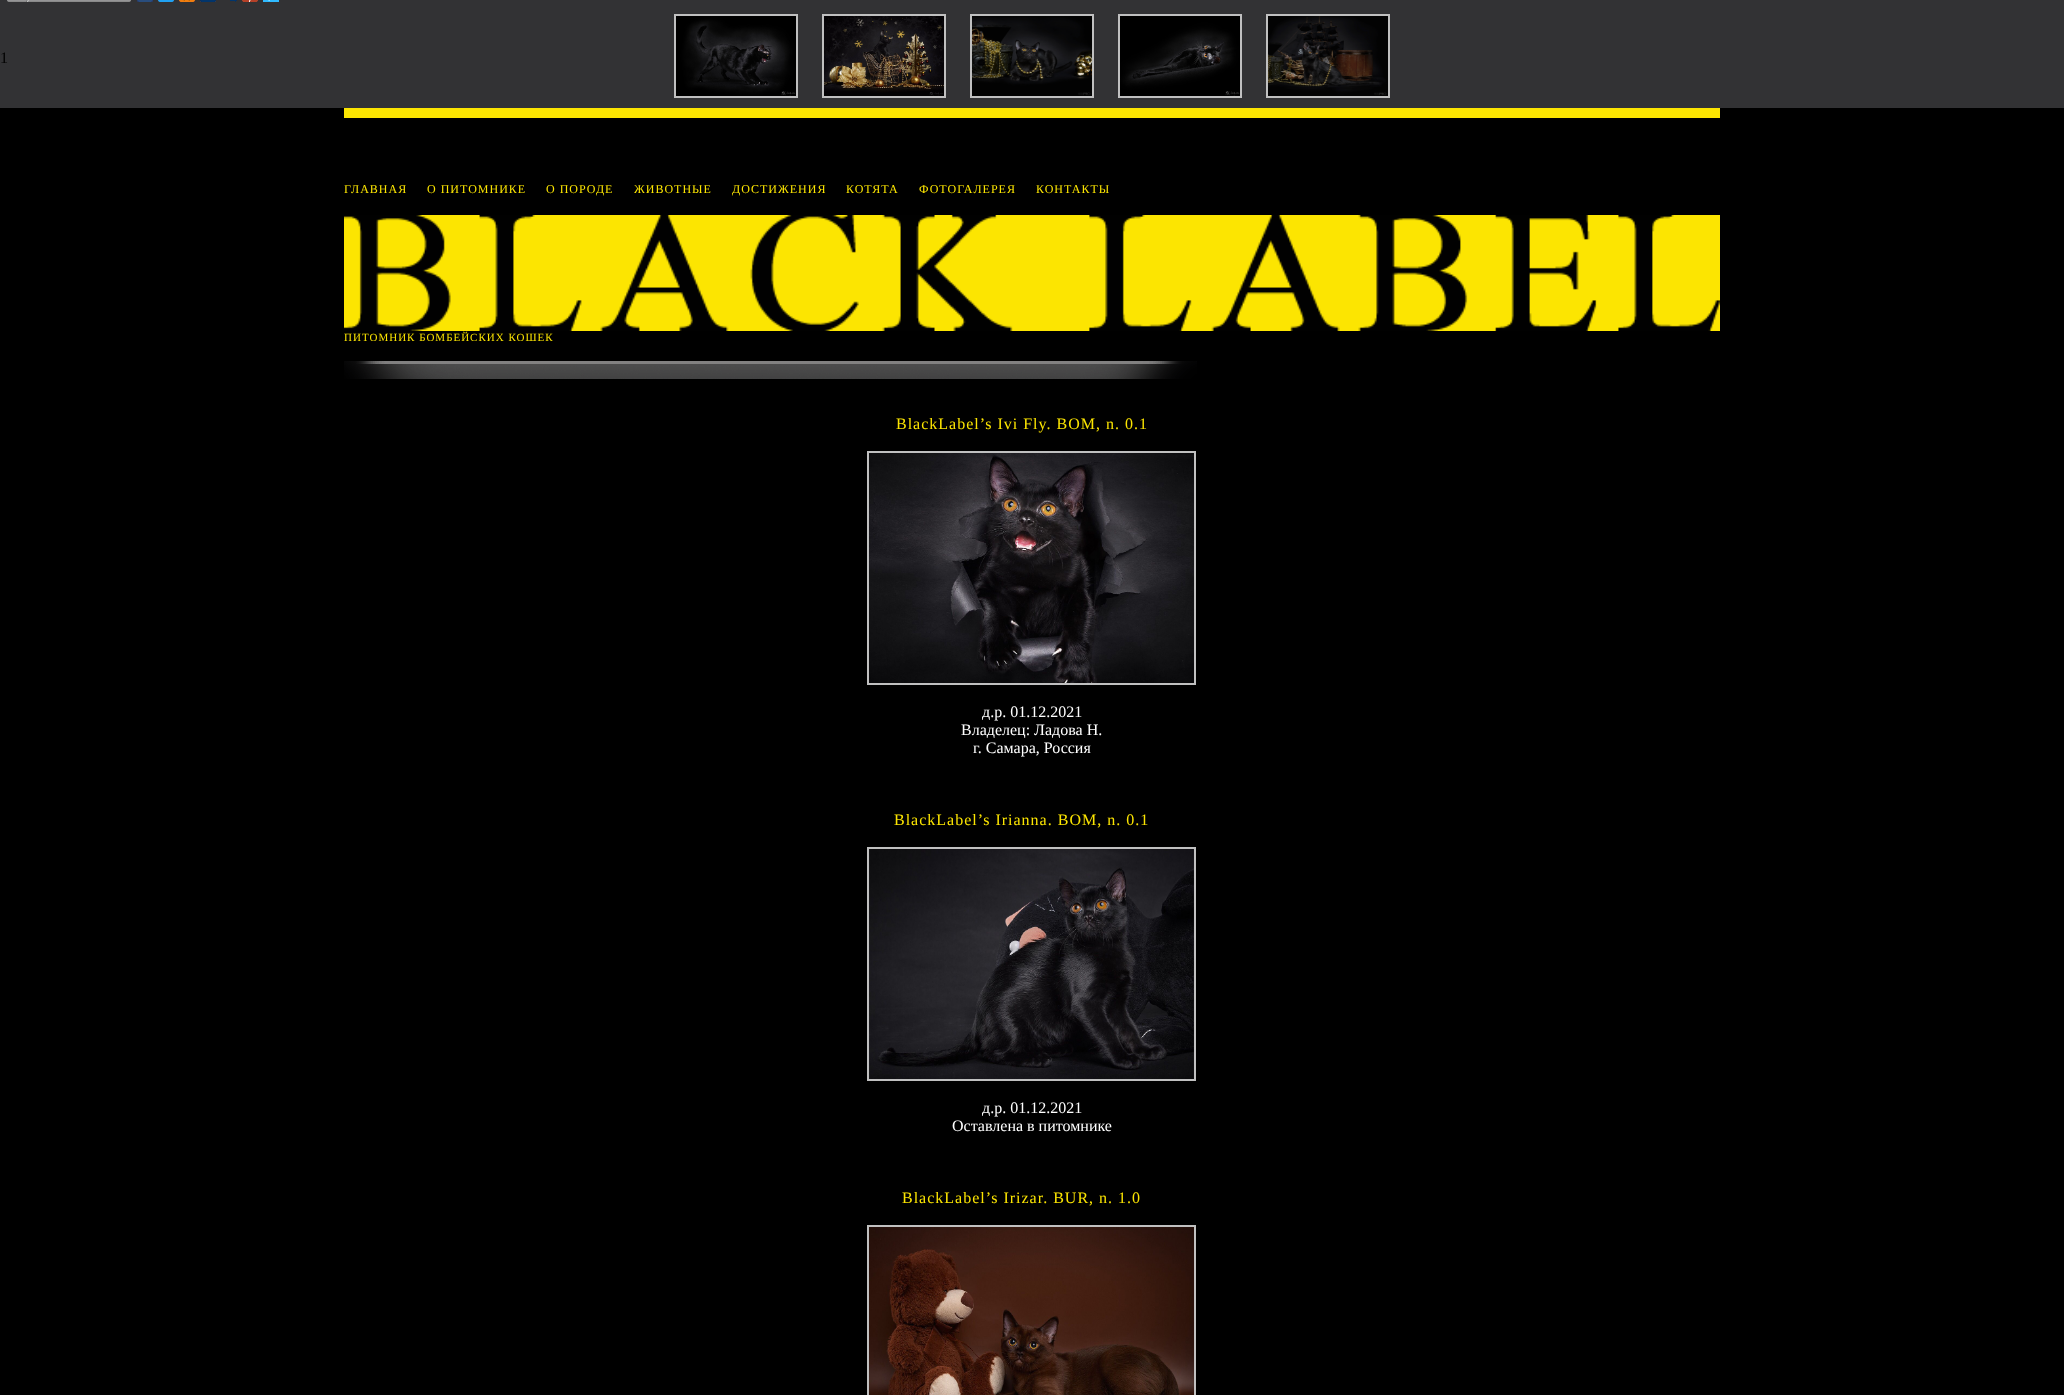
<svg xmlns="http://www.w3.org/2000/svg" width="2064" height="1395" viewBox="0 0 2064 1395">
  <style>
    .t1 { font: 16px Liberation Serif; fill: #000; }
    .t2 { font: 12px Liberation Serif; letter-spacing: 1px; fill: #fce501; }
    .t3 { font: 11px Liberation Serif; letter-spacing: 1px; fill: #fce501; }
    .t4 { font: 16px Liberation Serif; letter-spacing: 1px; fill: #fce501; }
    .t5 { font: 16px Liberation Serif; fill: #fff; }
  </style>
  <rect width="100%" height="100%" fill="#323234"/>
  <image x="9" y="0" width="120" height="2" href="images/1.png"/>
  <image x="7" y="0" width="2" height="2" href="images/2.png"/>
  <image x="26" y="0" width="3" height="2" href="images/3.png"/>
  <image x="129" y="0" width="2" height="2" href="images/4.png"/>
  <image x="137" y="0" width="16" height="2" href="images/5.png"/>
  <image x="158" y="0" width="16" height="2" href="images/6.png"/>
  <image x="179" y="0" width="16" height="2" href="images/7.png"/>
  <image x="200" y="0" width="16" height="2" href="images/8.png"/>
  <image x="230" y="0" width="7" height="2" href="images/9.png"/>
  <image x="242" y="0" width="16" height="2" href="images/10.png"/>
  <image x="263" y="0" width="16" height="2" href="images/11.png"/>
  <text x="0" y="63" class="t1">1</text>
  <rect x="675" y="15" width="122" height="82" fill="none" stroke="#c0c0c0" stroke-width="2"/>
  <rect x="823" y="15" width="122" height="82" fill="none" stroke="#c0c0c0" stroke-width="2"/>
  <rect x="971" y="15" width="122" height="82" fill="none" stroke="#c0c0c0" stroke-width="2"/>
  <rect x="1119" y="15" width="122" height="82" fill="none" stroke="#c0c0c0" stroke-width="2"/>
  <rect x="1267" y="15" width="122" height="82" fill="none" stroke="#c0c0c0" stroke-width="2"/>
  <image x="676" y="16" width="120" height="80" href="images/12.png"/>
  <image x="824" y="16" width="120" height="80" href="images/13.png"/>
  <image x="972" y="16" width="120" height="80" href="images/14.png"/>
  <image x="1120" y="16" width="120" height="80" href="images/15.png"/>
  <image x="1268" y="16" width="120" height="80" href="images/16.png"/>
  <rect x="0" y="108" width="344" height="1287" fill="#000"/>
  <rect x="344" y="118" width="1376" height="1277" fill="#000"/>
  <rect x="344" y="108" width="1376" height="10" fill="#fce501"/>
  <text x="344" y="193" class="t2">ГЛАВНАЯ</text>
  <text x="427" y="193" class="t2">О ПИТОМНИКЕ</text>
  <text x="546" y="193" class="t2">О ПОРОДЕ</text>
  <text x="634" y="193" class="t2">ЖИВОТНЫЕ</text>
  <text x="732" y="193" class="t2">ДОСТИЖЕНИЯ</text>
  <text x="846" y="193" class="t2">КОТЯТА</text>
  <text x="919" y="193" class="t2">ФОТОГАЛЕРЕЯ</text>
  <text x="1036" y="193" class="t2">КОНТАКТЫ</text>
  <image x="344" y="215" width="1376" height="116" href="images/17.png"/>
  <text x="344" y="341" class="t3">ПИТОМНИК БОМБЕЙСКИХ КОШЕК</text>
  <image x="344" y="361" width="853" height="18" href="images/18.png"/>
  <text x="896" y="429" class="t4">BlackLabel’s Ivi Fly. BOM, n. 0.1</text>
  <rect x="868" y="452" width="327" height="232" fill="none" stroke="#c0c0c0" stroke-width="2"/>
  <image x="869" y="453" width="325" height="230" href="images/19.png"/>
  <text x="982" y="717" class="t5">д.р. 01.12.2021</text>
  <text x="961" y="735" class="t5">Владелец: Ладова Н.</text>
  <text x="973" y="753" class="t5">г. Самара, Россия</text>
  <text x="894" y="825" class="t4">BlackLabel’s Irianna. BOM, n. 0.1</text>
  <rect x="868" y="848" width="327" height="232" fill="none" stroke="#c0c0c0" stroke-width="2"/>
  <image x="869" y="849" width="325" height="230" href="images/20.png"/>
  <text x="982" y="1113" class="t5">д.р. 01.12.2021</text>
  <text x="952" y="1131" class="t5">Оставлена в питомнике</text>
  <text x="902" y="1203" class="t4">BlackLabel’s Irizar. BUR, n. 1.0</text>
  <rect x="868" y="1226" width="327" height="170" fill="none" stroke="#c0c0c0" stroke-width="2"/>
  <image x="869" y="1227" width="325" height="168" href="images/21.png"/>
  <rect x="1720" y="108" width="344" height="1287" fill="#000"/>
</svg>
